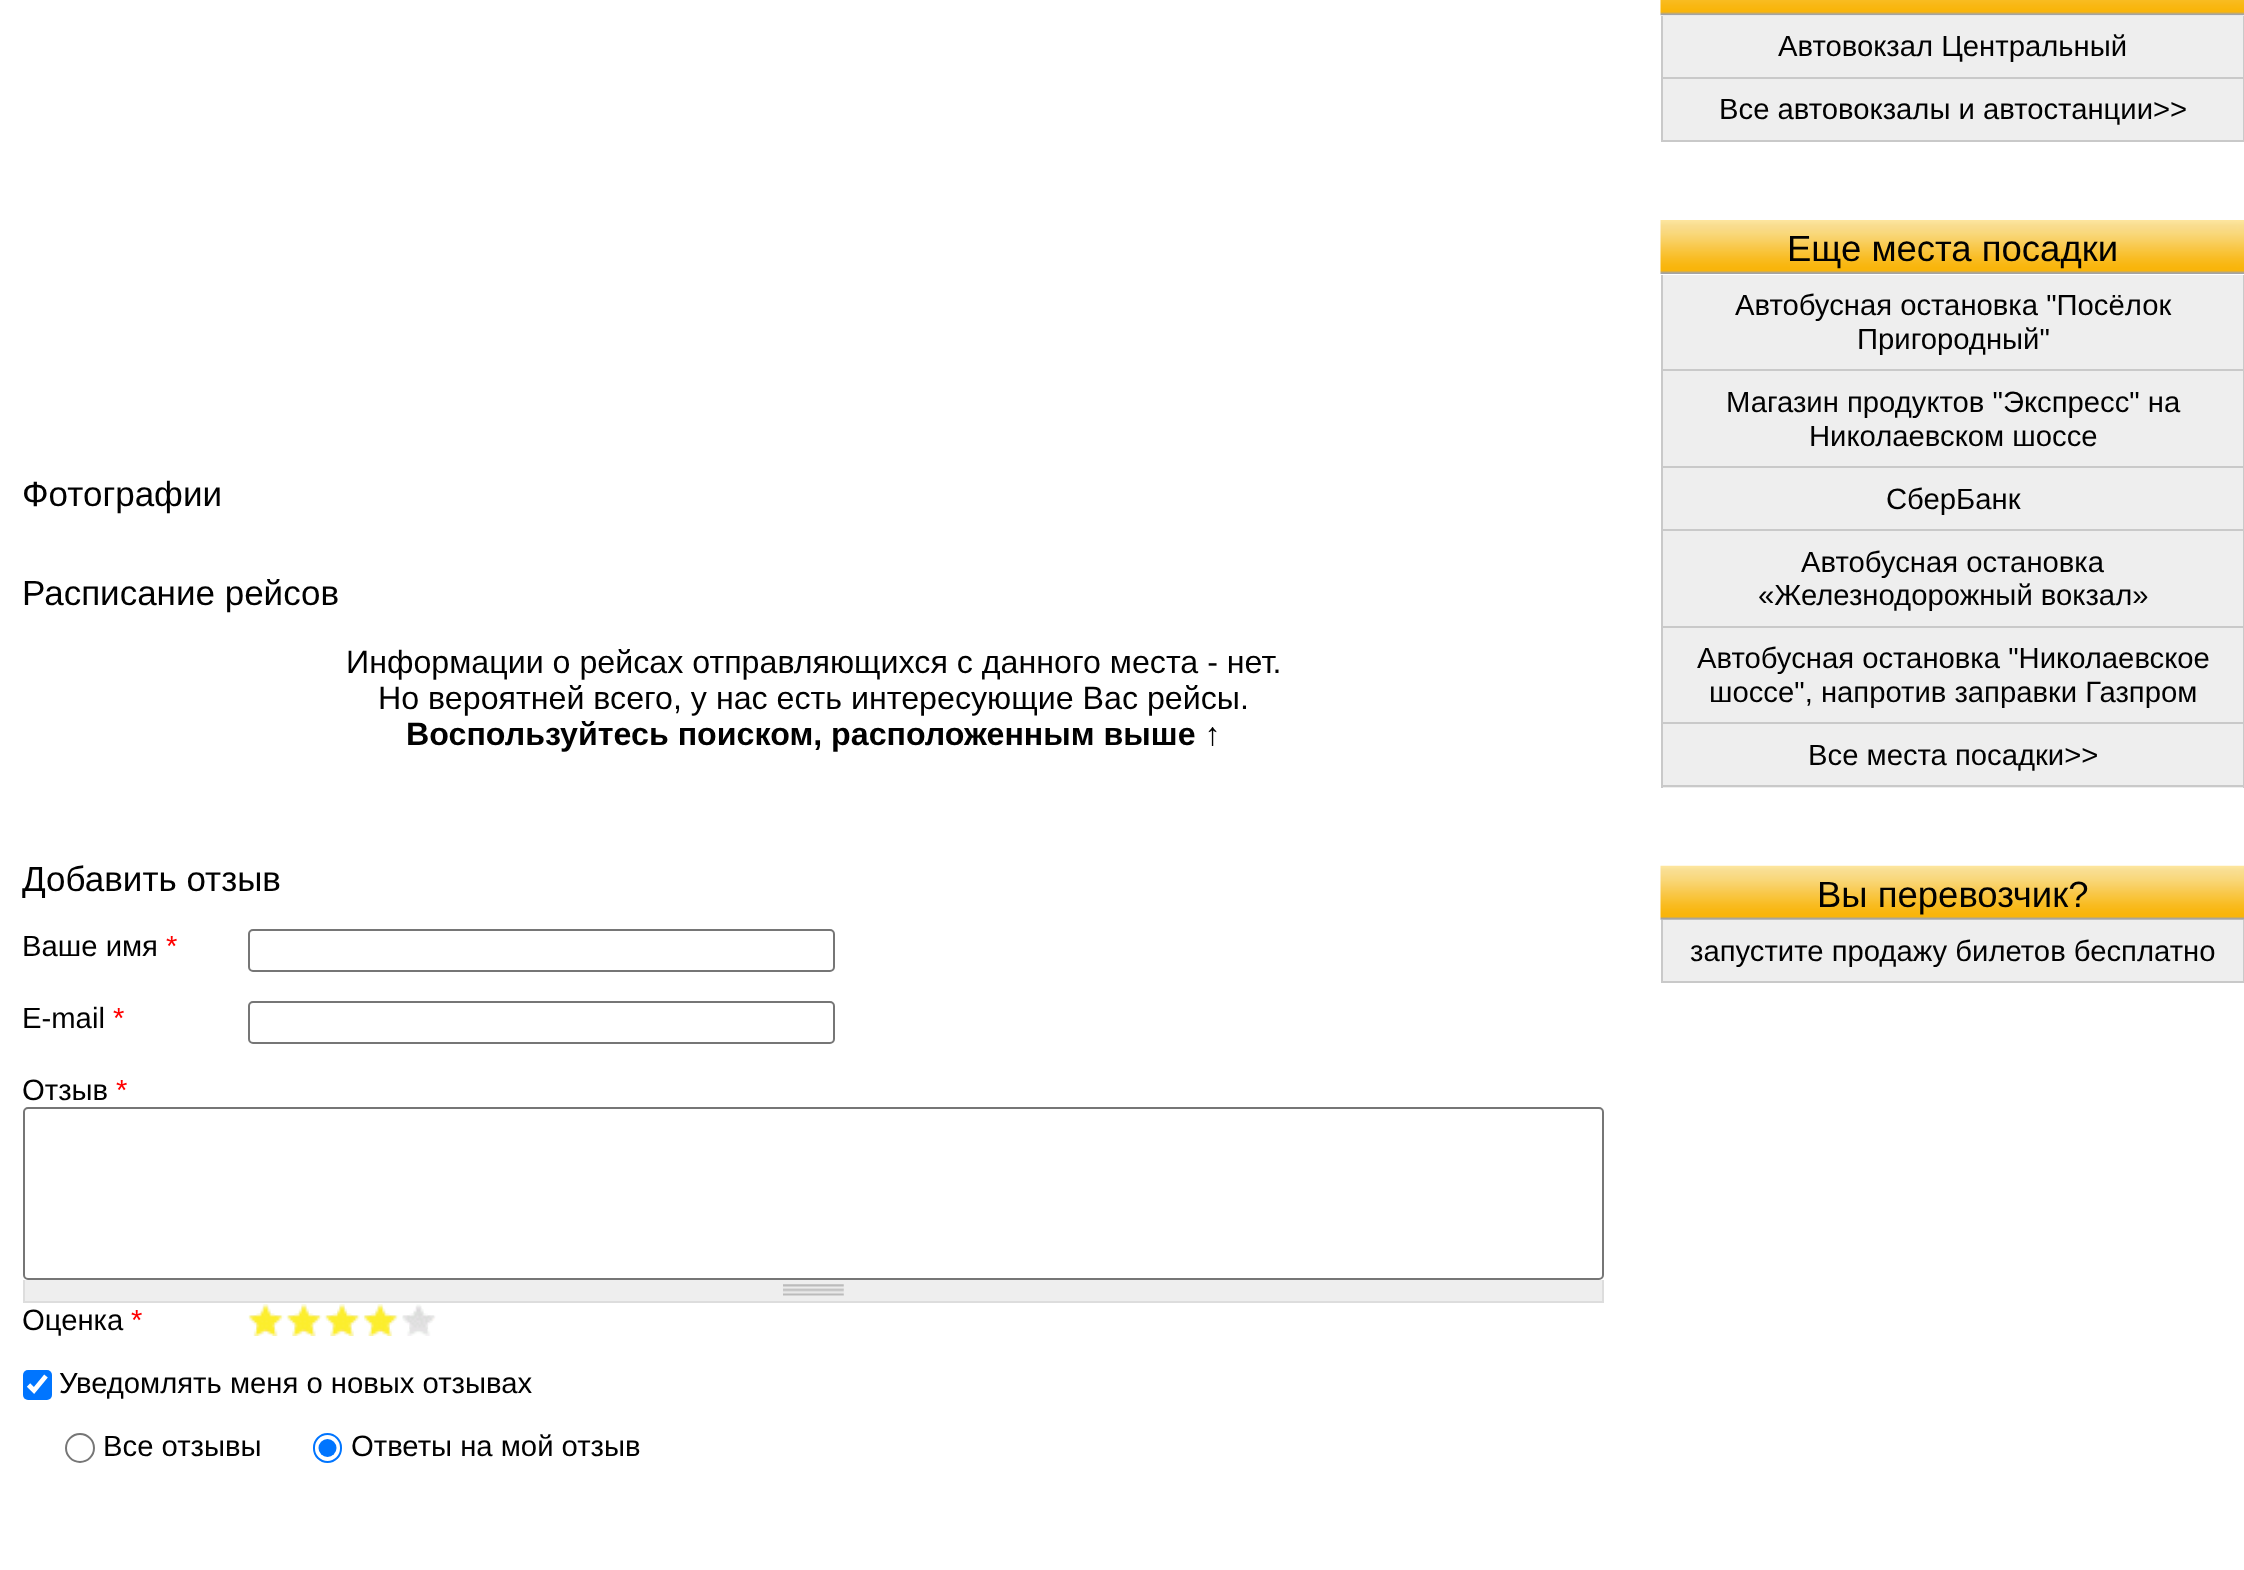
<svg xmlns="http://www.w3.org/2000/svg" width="2244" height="1570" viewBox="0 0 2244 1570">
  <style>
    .t1 { font: 35px Liberation Sans; fill: #010101; }
    .t2 { font: 32.2px Liberation Sans; fill: #010101; }
    .t3 { font: bold 32.2px Liberation Sans; fill: #010101; }
    .t4 { font: 29.25px Liberation Sans; fill: #010101; }
    .t5 { font: 29.25px Liberation Sans; fill: #f00; }
    .t6 { font: 36.5px Liberation Sans; fill: #010101; }
  </style>
  <rect width="100%" height="100%" fill="#fff"/>
  <text x="22" y="506" class="t1">Фотографии</text>
  <text x="22" y="605" class="t1">Расписание рейсов</text>
  <text x="346" y="673" class="t2">Информации о рейсах отправляющихся с данного места - нет.</text>
  <text x="378" y="709" class="t2">Но вероятней всего, у нас есть интересующие Вас рейсы.</text>
  <text x="406" y="745" class="t3">Воспользуйтесь поиском, расположенным выше ↑</text>
  <text x="22" y="891" class="t1">Добавить отзыв</text>
  <text x="22" y="956" class="t4">Ваше имя</text>
  <text x="166" y="956" class="t5">*</text>
  <rect x="249" y="930" width="585" height="41" rx="4" fill="none" stroke="#767676" stroke-width="2"/>
  <text x="22" y="1028" class="t4">E-mail</text>
  <text x="113" y="1028" class="t5">*</text>
  <rect x="249" y="1002" width="585" height="41" rx="4" fill="none" stroke="#767676" stroke-width="2"/>
  <text x="22" y="1100" class="t4">Отзыв</text>
  <text x="116" y="1100" class="t5">*</text>
  <rect x="24" y="1108" width="1579" height="171" rx="4" fill="none" stroke="#767676" stroke-width="2"/>
  <rect x="25" y="1280" width="1577" height="21" fill="#eee"/>
  <image x="783" y="1284" width="61" height="12" href="images/1.png"/>
  <rect x="1602" y="1280" width="2" height="23" fill="#ddd"/>
  <rect x="23" y="1301" width="1581" height="2" fill="#ddd"/>
  <rect x="23" y="1280" width="2" height="23" fill="#ddd"/>
  <text x="22" y="1330" class="t4">Оценка</text>
  <text x="131" y="1330" class="t5">*</text>
  <image x="249" y="1304" width="34" height="32" href="images/2.png"/>
  <image x="248" y="1304" width="36" height="32" href="images/3.png"/>
  <image x="287" y="1304" width="34" height="32" href="images/4.png"/>
  <image x="286" y="1304" width="36" height="32" href="images/5.png"/>
  <image x="325" y="1304" width="35" height="32" href="images/6.png"/>
  <image x="324" y="1304" width="36" height="32" href="images/7.png"/>
  <image x="364" y="1304" width="34" height="32" href="images/8.png"/>
  <image x="362" y="1304" width="37" height="32" href="images/9.png"/>
  <image x="402" y="1304" width="34" height="32" href="images/10.png"/>
  <image x="403" y="1306" width="31" height="23" href="images/11.png"/>
  <rect x="23" y="1370" width="29" height="30" rx="5" fill="#0075ff"/>
  <path d="M28.5 1385L34 1390.5L46 1376" fill="none" stroke="#fff" stroke-width="4.7"/>
  <text x="59" y="1393" class="t4">Уведомлять меня о новых отзывах</text>
  <circle cx="80" cy="1448" r="14" fill="none" stroke="#767676" stroke-width="2"/>
  <text x="103" y="1456" class="t4">Все отзывы</text>
  <rect x="314" y="1434" width="27" height="28" rx="13.5" fill="none" stroke="#0075ff" stroke-width="2"/>
  <circle cx="327.5" cy="1448" r="9" fill="#0075ff"/>
  <text x="351" y="1456" class="t4">Ответы на мой отзыв</text>
  <image x="1660" y="0" width="584" height="16" href="images/12.png"/>
  <rect x="1663" y="16" width="580" height="61" fill="#eee"/>
  <rect x="2243" y="16" width="1" height="126" fill="#c9c9c9"/>
  <rect x="1661" y="16" width="2" height="126" fill="#c9c9c9"/>
  <rect x="1663" y="77" width="580" height="2" fill="#c9c9c9"/>
  <text x="1778" y="56" class="t4">Автовокзал Центральный</text>
  <rect x="1663" y="79" width="580" height="61" fill="#eee"/>
  <rect x="1663" y="140" width="580" height="2" fill="#c9c9c9"/>
  <text x="1719" y="119" class="t4">Все автовокзалы и автостанции&gt;&gt;</text>
  <image x="1660" y="220" width="584" height="54" href="images/13.png"/>
  <text x="1787" y="261" class="t6">Еще места посадки</text>
  <rect x="1663" y="275" width="580" height="513" fill="#eee"/>
  <rect x="2243" y="275" width="1" height="513" fill="#c9c9c9"/>
  <rect x="1661" y="275" width="2" height="513" fill="#c9c9c9"/>
  <rect x="1663" y="369" width="580" height="2" fill="#c9c9c9"/>
  <text x="1735" y="315" class="t4">Автобусная остановка "Посёлок</text>
  <text x="1857" y="349" class="t4">Пригородный"</text>
  <rect x="1663" y="466" width="580" height="2" fill="#c9c9c9"/>
  <text x="1726" y="412" class="t4">Магазин продуктов "Экспресс" на</text>
  <text x="1809" y="446" class="t4">Николаевском шоссе</text>
  <rect x="1663" y="529" width="580" height="2" fill="#c9c9c9"/>
  <text x="1886" y="509" class="t4">СберБанк</text>
  <rect x="1663" y="626" width="580" height="2" fill="#c9c9c9"/>
  <text x="1801" y="572" class="t4">Автобусная остановка</text>
  <text x="1758" y="605" class="t4">«Железнодорожный вокзал»</text>
  <rect x="1663" y="722" width="580" height="2" fill="#c9c9c9"/>
  <text x="1697" y="668" class="t4">Автобусная остановка "Николаевское</text>
  <text x="1709" y="702" class="t4">шоссе", напротив заправки Газпром</text>
  <rect x="1663" y="785" width="580" height="2" fill="#c9c9c9"/>
  <text x="1808" y="765" class="t4">Все места посадки&gt;&gt;</text>
  <image x="1660" y="865" width="584" height="55" href="images/14.png"/>
  <text x="1817" y="907" class="t6">Вы перевозчик?</text>
  <rect x="1663" y="920" width="580" height="61" fill="#eee"/>
  <rect x="2243" y="920" width="1" height="63" fill="#c9c9c9"/>
  <rect x="1661" y="920" width="2" height="63" fill="#c9c9c9"/>
  <rect x="1663" y="981" width="580" height="2" fill="#c9c9c9"/>
  <text x="1690" y="961" class="t4">запустите продажу билетов бесплатно</text>
</svg>
